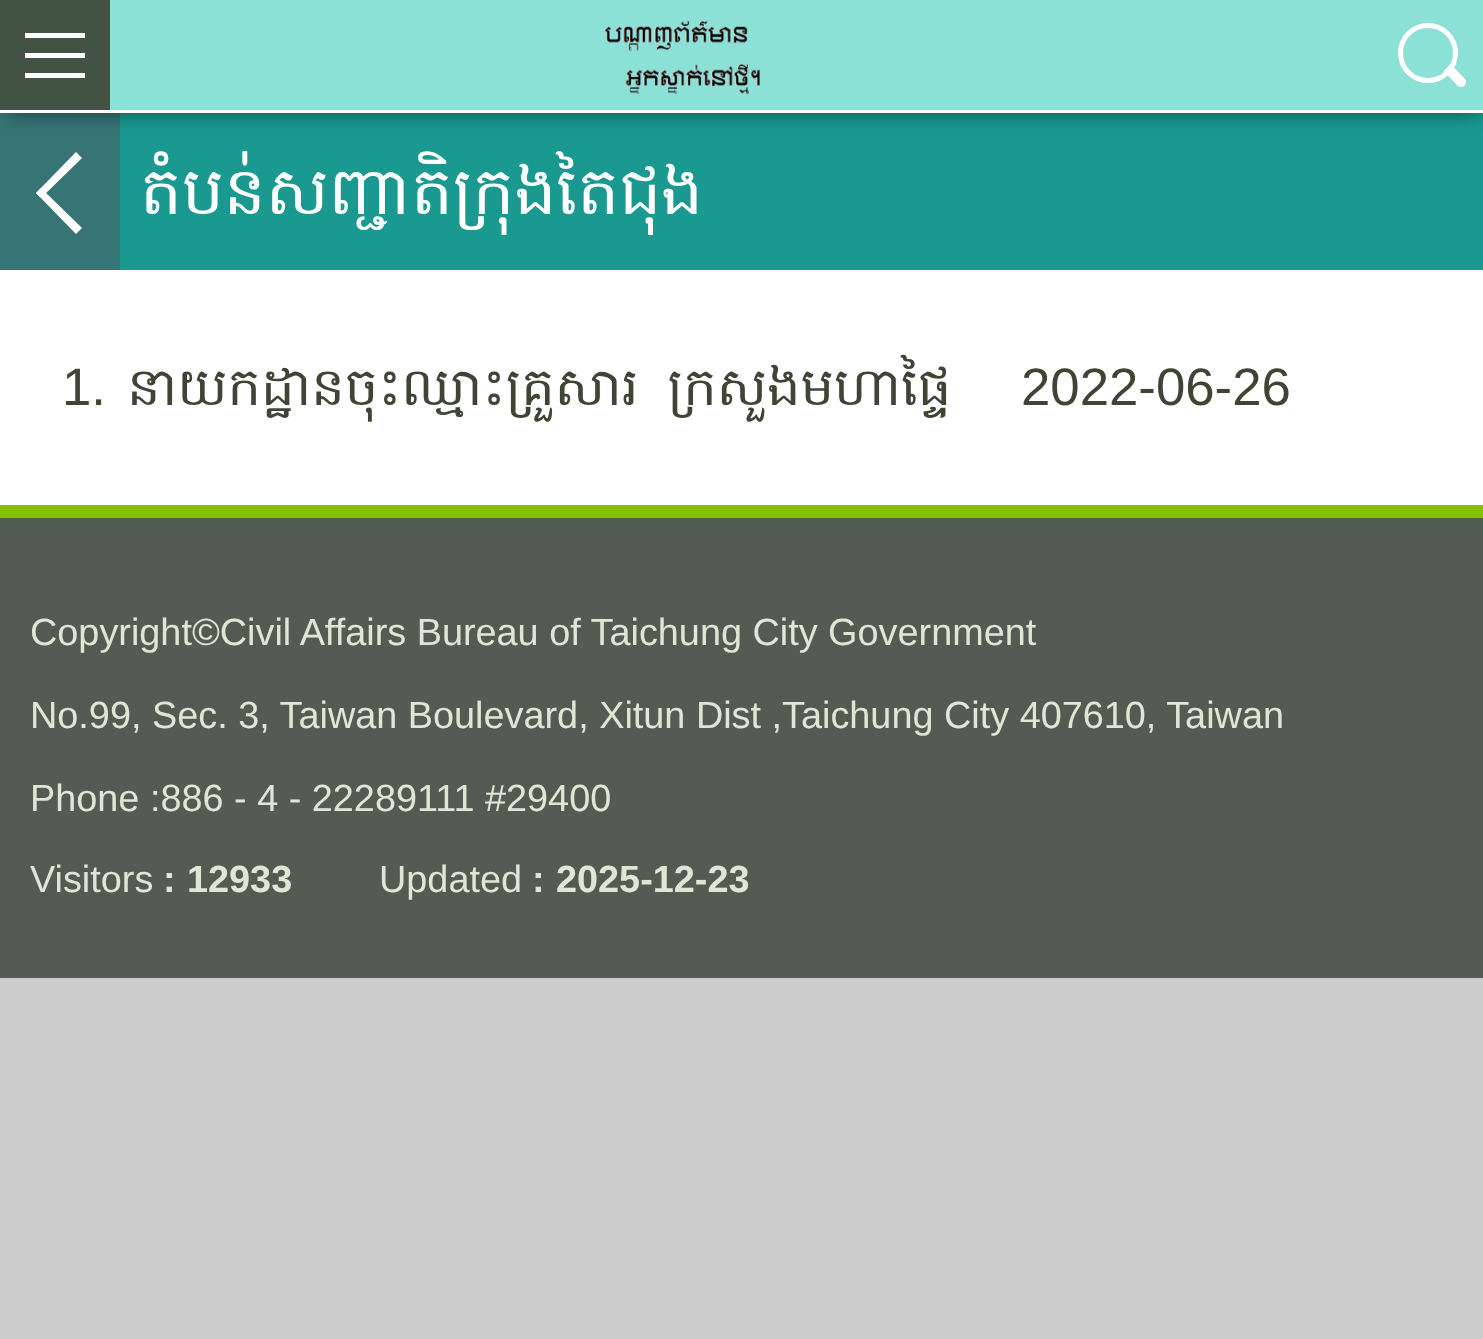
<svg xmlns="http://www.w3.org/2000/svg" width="1483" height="1339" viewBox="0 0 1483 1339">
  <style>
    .t1 { font: 66px Hanuman; fill: #fff; }
    .t2 { font: 52.75px Liberation Sans; fill: #3f4534; }
    .t3 { font: 52.75px Hanuman; fill: #3f4534; }
    .t4 { font: 37.85px Liberation Sans; fill: #dce8d4; }
    .t5 { font: bold 37.85px Liberation Sans; fill: #dce8d4; }
  </style>
  <rect width="100%" height="100%" fill="#ccc"/>
  <rect x="0" y="270" width="1483" height="235" fill="#fff"/>
  <rect x="120" y="113" width="1363" height="157" fill="#199990"/>
  <text x="140" y="214" class="t1">តំបន់សញ្ជាតិក្រុងតៃជុង</text>
  <rect x="0" y="113" width="120" height="157" fill="#377476"/>
  <rect x="8" y="15" width="1470" height="98" fill="#00000080" filter="blur(10px)"/>
  <rect x="110" y="0" width="1373" height="110" fill="#8ce1d7"/>
  <rect x="0" y="110" width="1483" height="3" fill="#fff"/>
  <rect x="0" y="0" width="110" height="110" fill="#435343"/>
  <rect x="25" y="33" width="60" height="5" fill="#fff"/>
  <rect x="25" y="73" width="60" height="5" fill="#fff"/>
  <rect x="25" y="53" width="60" height="5" fill="#fff"/>
  <image x="604" y="20" width="156" height="75" href="images/1.png"/>
  <circle cx="1428" cy="53" r="27.5" fill="none" stroke="#fff" stroke-width="5"/>
  <path d="M1450.5 64L1464.5 78.5C1466.5 80 1466.5 83.5 1464.5 85.5C1462.5 87.5 1459.5 87.5 1457.5 85.5L1443.5 71Z" fill="#fff"/>
  <path d="M41 188L82 228L76 234L36 193Z" fill="#fff"/>
  <path d="M76 152L82 158L41 198L36 193Z" fill="#fff"/>
  <text x="62" y="405" class="t2">1.</text>
  <text x="127" y="405" word-spacing="11" class="t3">នាយកដ្ឋានចុះឈ្មោះគ្រួសារ ក្រសួងមហាផ្ទៃ</text>
  <text x="1021" y="405" class="t2">2022-06-26</text>
  <rect x="0" y="518" width="1483" height="460" fill="#535c53"/>
  <rect x="0" y="505" width="1483" height="13" fill="#84c000"/>
  <text x="30" y="645" class="t4">Copyright©Civil Affairs Bureau of Taichung City Government</text>
  <text x="30" y="728" class="t4">No.99, Sec. 3, Taiwan Boulevard, Xitun Dist ,Taichung City 407610, Taiwan</text>
  <text x="30" y="811" class="t4">Phone :886 - 4 - 22289111 #29400</text>
  <text x="30" y="892" class="t4">Visitors</text>
  <text x="163" y="892" class="t5">:</text>
  <text x="187" y="892" class="t5">12933</text>
  <text x="379" y="892" class="t4">Updated</text>
  <text x="532" y="892" class="t5">:</text>
  <text x="556" y="892" class="t5">2025-12-23</text>
</svg>
